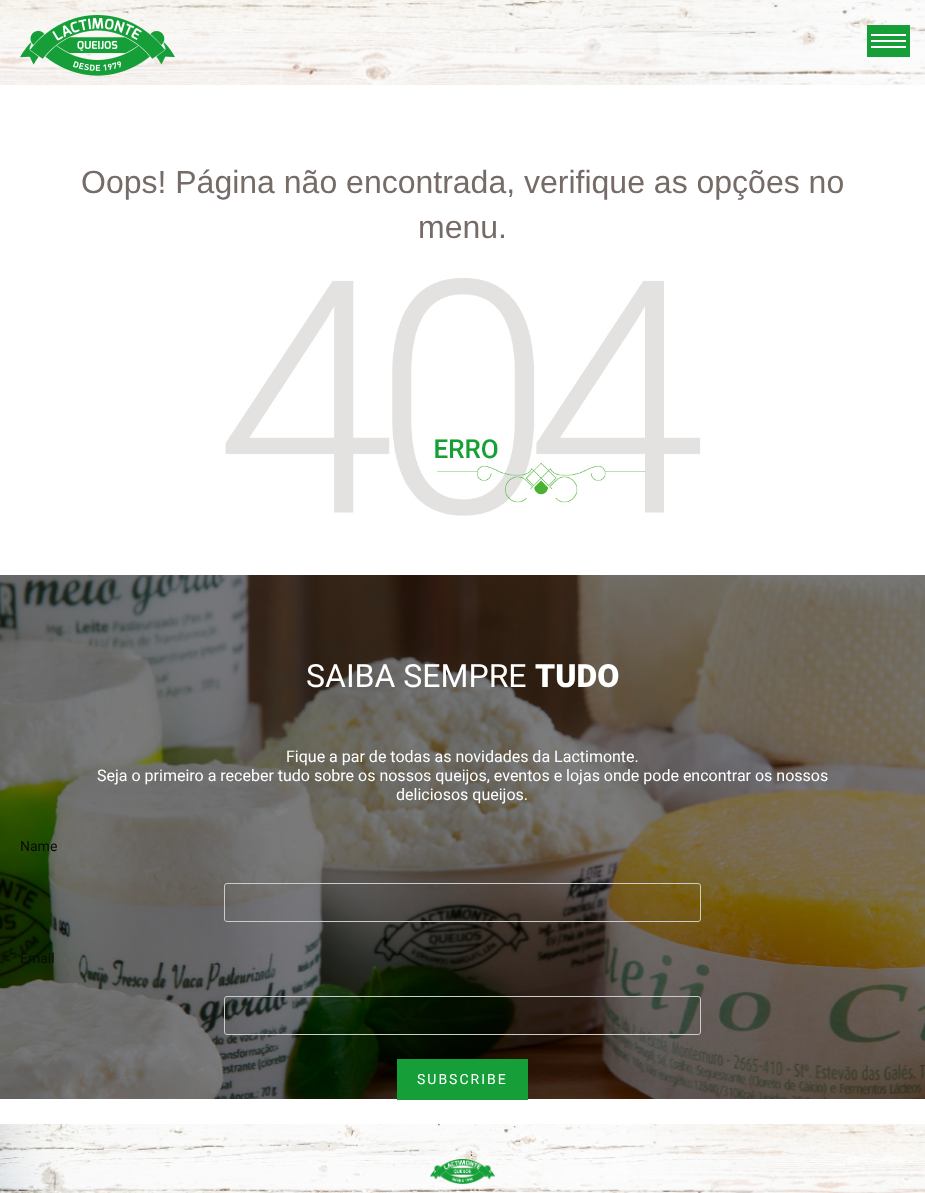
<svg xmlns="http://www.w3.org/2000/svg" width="925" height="1193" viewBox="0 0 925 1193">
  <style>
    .t1 { font: 32px Liberation Sans; fill: #756c67; }
    .t2 { font: 32px Roboto; fill: #fff; }
    .t3 { font: 900 32px Roboto; fill: #fff; }
    .t4 { font: 16px Roboto; fill: #fff; }
    .t5 { font: 14px Roboto; fill: #0a0a0a; }
    .t6 { font: 14px Roboto; letter-spacing: 2px; fill: #fff; }
  </style>
  <rect width="100%" height="100%" fill="#fff"/>
  <image x="0" y="0" width="925" height="85" href="images/1.png"/>
  <image x="20" y="15" width="155" height="61" href="images/2.png"/>
  <rect x="867" y="25" width="43" height="32" fill="#169f38"/>
  <rect x="871" y="34" width="35" height="2" fill="#fff"/>
  <rect x="871" y="40" width="35" height="2" fill="#fff"/>
  <rect x="871" y="46" width="35" height="2" fill="#fff"/>
  <text x="81" y="193" class="t1">Oops! Página não encontrada, verifique as opções no</text>
  <text x="418" y="238" class="t1">menu.</text>
  <image x="225" y="278" width="476" height="238" href="images/3.png"/>
  <image x="0" y="575" width="925" height="524" href="images/4.png"/>
  <text x="306" y="687" class="t2">SAIBA SEMPRE</text>
  <text x="535" y="687" class="t3">TUDO</text>
  <text x="286" y="762" class="t4">Fique a par de todas as novidades da Lactimonte.</text>
  <text x="97" y="781" class="t4">Seja o primeiro a receber tudo sobre os nossos queijos, eventos e lojas onde pode encontrar os nossos</text>
  <text x="396" y="800" class="t4">deliciosos queijos.</text>
  <text x="20" y="851" class="t5">Name</text>
  <rect x="224.5" y="883.5" width="476" height="38" rx="2.5" fill="none" stroke="#ccc"/>
  <text x="20" y="963" class="t5">Email</text>
  <rect x="224.5" y="996.5" width="476" height="38" rx="2.5" fill="none" stroke="#ccc"/>
  <rect x="397" y="1059" width="131" height="41" fill="#169f38"/>
  <text x="417" y="1084" class="t6">SUBSCRIBE</text>
  <image x="0" y="1124" width="925" height="69" href="images/5.png"/>
  <image x="430" y="1159" width="65" height="25" href="images/6.png"/>
</svg>
